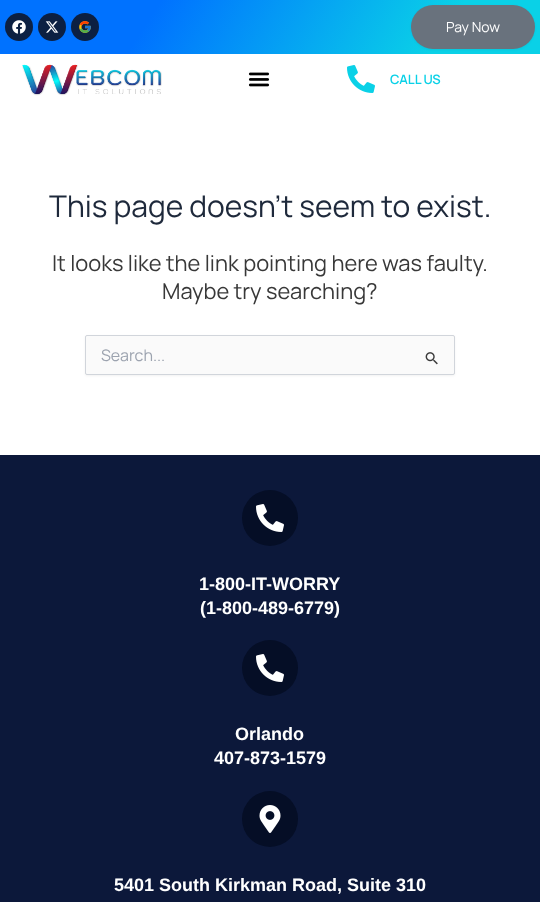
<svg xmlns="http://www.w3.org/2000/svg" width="540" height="902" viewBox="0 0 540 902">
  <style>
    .t1 { font: 14px Manrope; fill: #fff; }
    .t2 { font: 600 13px Manrope; fill: #0ad1e7; }
    .t3 { font: 30px Manrope; fill: #1e293b; }
    .t4 { font: 21.9px Manrope; fill: #383838; }
    .t5 { font: 16px Manrope; fill: #9ca3af; }
    .t6 { font: bold 18px Liberation Sans; fill: #fff; }
  </style>
  <defs>
    <linearGradient id="g1" gradientUnits="userSpaceOnUse" x1="68" y1="-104" x2="472" y2="158"><stop offset="0.28" stop-color="#0072ff"/><stop offset="0.81" stop-color="#0ad1e7"/></linearGradient>
  </defs>
  <rect width="100%" height="100%" fill="#fff"/>
  <rect x="0" y="0" width="540" height="54" fill="url(#g1)"/>
  <circle cx="19" cy="27" r="14" fill="#0c2042"/>
  <image x="12" y="20" width="14" height="14" href="images/1.png"/>
  <circle cx="52" cy="27" r="14" fill="#0c2042"/>
  <image x="45" y="21" width="14" height="12" href="images/2.png"/>
  <circle cx="85" cy="27" r="14" fill="#0c2042"/>
  <image x="79" y="21" width="12" height="12" href="images/3.png"/>
  <rect x="411" y="6" width="124" height="44" rx="22" fill="#0000000d" filter="blur(1px)"/>
  <rect x="411" y="5" width="124" height="44" rx="22" fill="#69727d"/>
  <text x="446" y="32" class="t1">Pay Now</text>
  <image x="22" y="64" width="140" height="32" href="images/4.png"/>
  <image x="248" y="72" width="22" height="15" href="images/5.png"/>
  <image x="347" y="65" width="28" height="28" href="images/6.png"/>
  <text x="390" y="84" class="t2">CALL US</text>
  <text x="49" y="217" class="t3">This page doesn't seem to exist.</text>
  <text x="52" y="271" class="t4">It looks like the link pointing here was faulty.</text>
  <text x="162" y="299" class="t4">Maybe try searching?</text>
  <rect x="85" y="336" width="370" height="40" rx="2" fill="#0000000d" filter="blur(1px)"/>
  <rect x="85.5" y="335.5" width="369" height="39" rx="1.5" fill="#fafafa" stroke="#d1d5db"/>
  <text x="101" y="361" class="t5">Search...</text>
  <image x="425" y="352" width="13" height="13" href="images/7.png"/>
  <rect x="0" y="455" width="540" height="447" fill="#0c183a"/>
  <circle cx="270" cy="518" r="28" fill="#050e26"/>
  <image x="256" y="504" width="28" height="28" href="images/8.png"/>
  <text x="199" y="590" class="t6">1-800-IT-WORRY</text>
  <text x="200" y="614" class="t6">(1-800-489-6779)</text>
  <circle cx="270" cy="668" r="28" fill="#050e26"/>
  <image x="256" y="654" width="28" height="28" href="images/8.png"/>
  <text x="235" y="740" class="t6">Orlando</text>
  <text x="214" y="764" class="t6">407-873-1579</text>
  <circle cx="270" cy="819" r="28" fill="#050e26"/>
  <image x="259" y="805" width="22" height="28" href="images/9.png"/>
  <text x="114" y="891" class="t6">5401 South Kirkman Road, Suite 310</text>
</svg>
